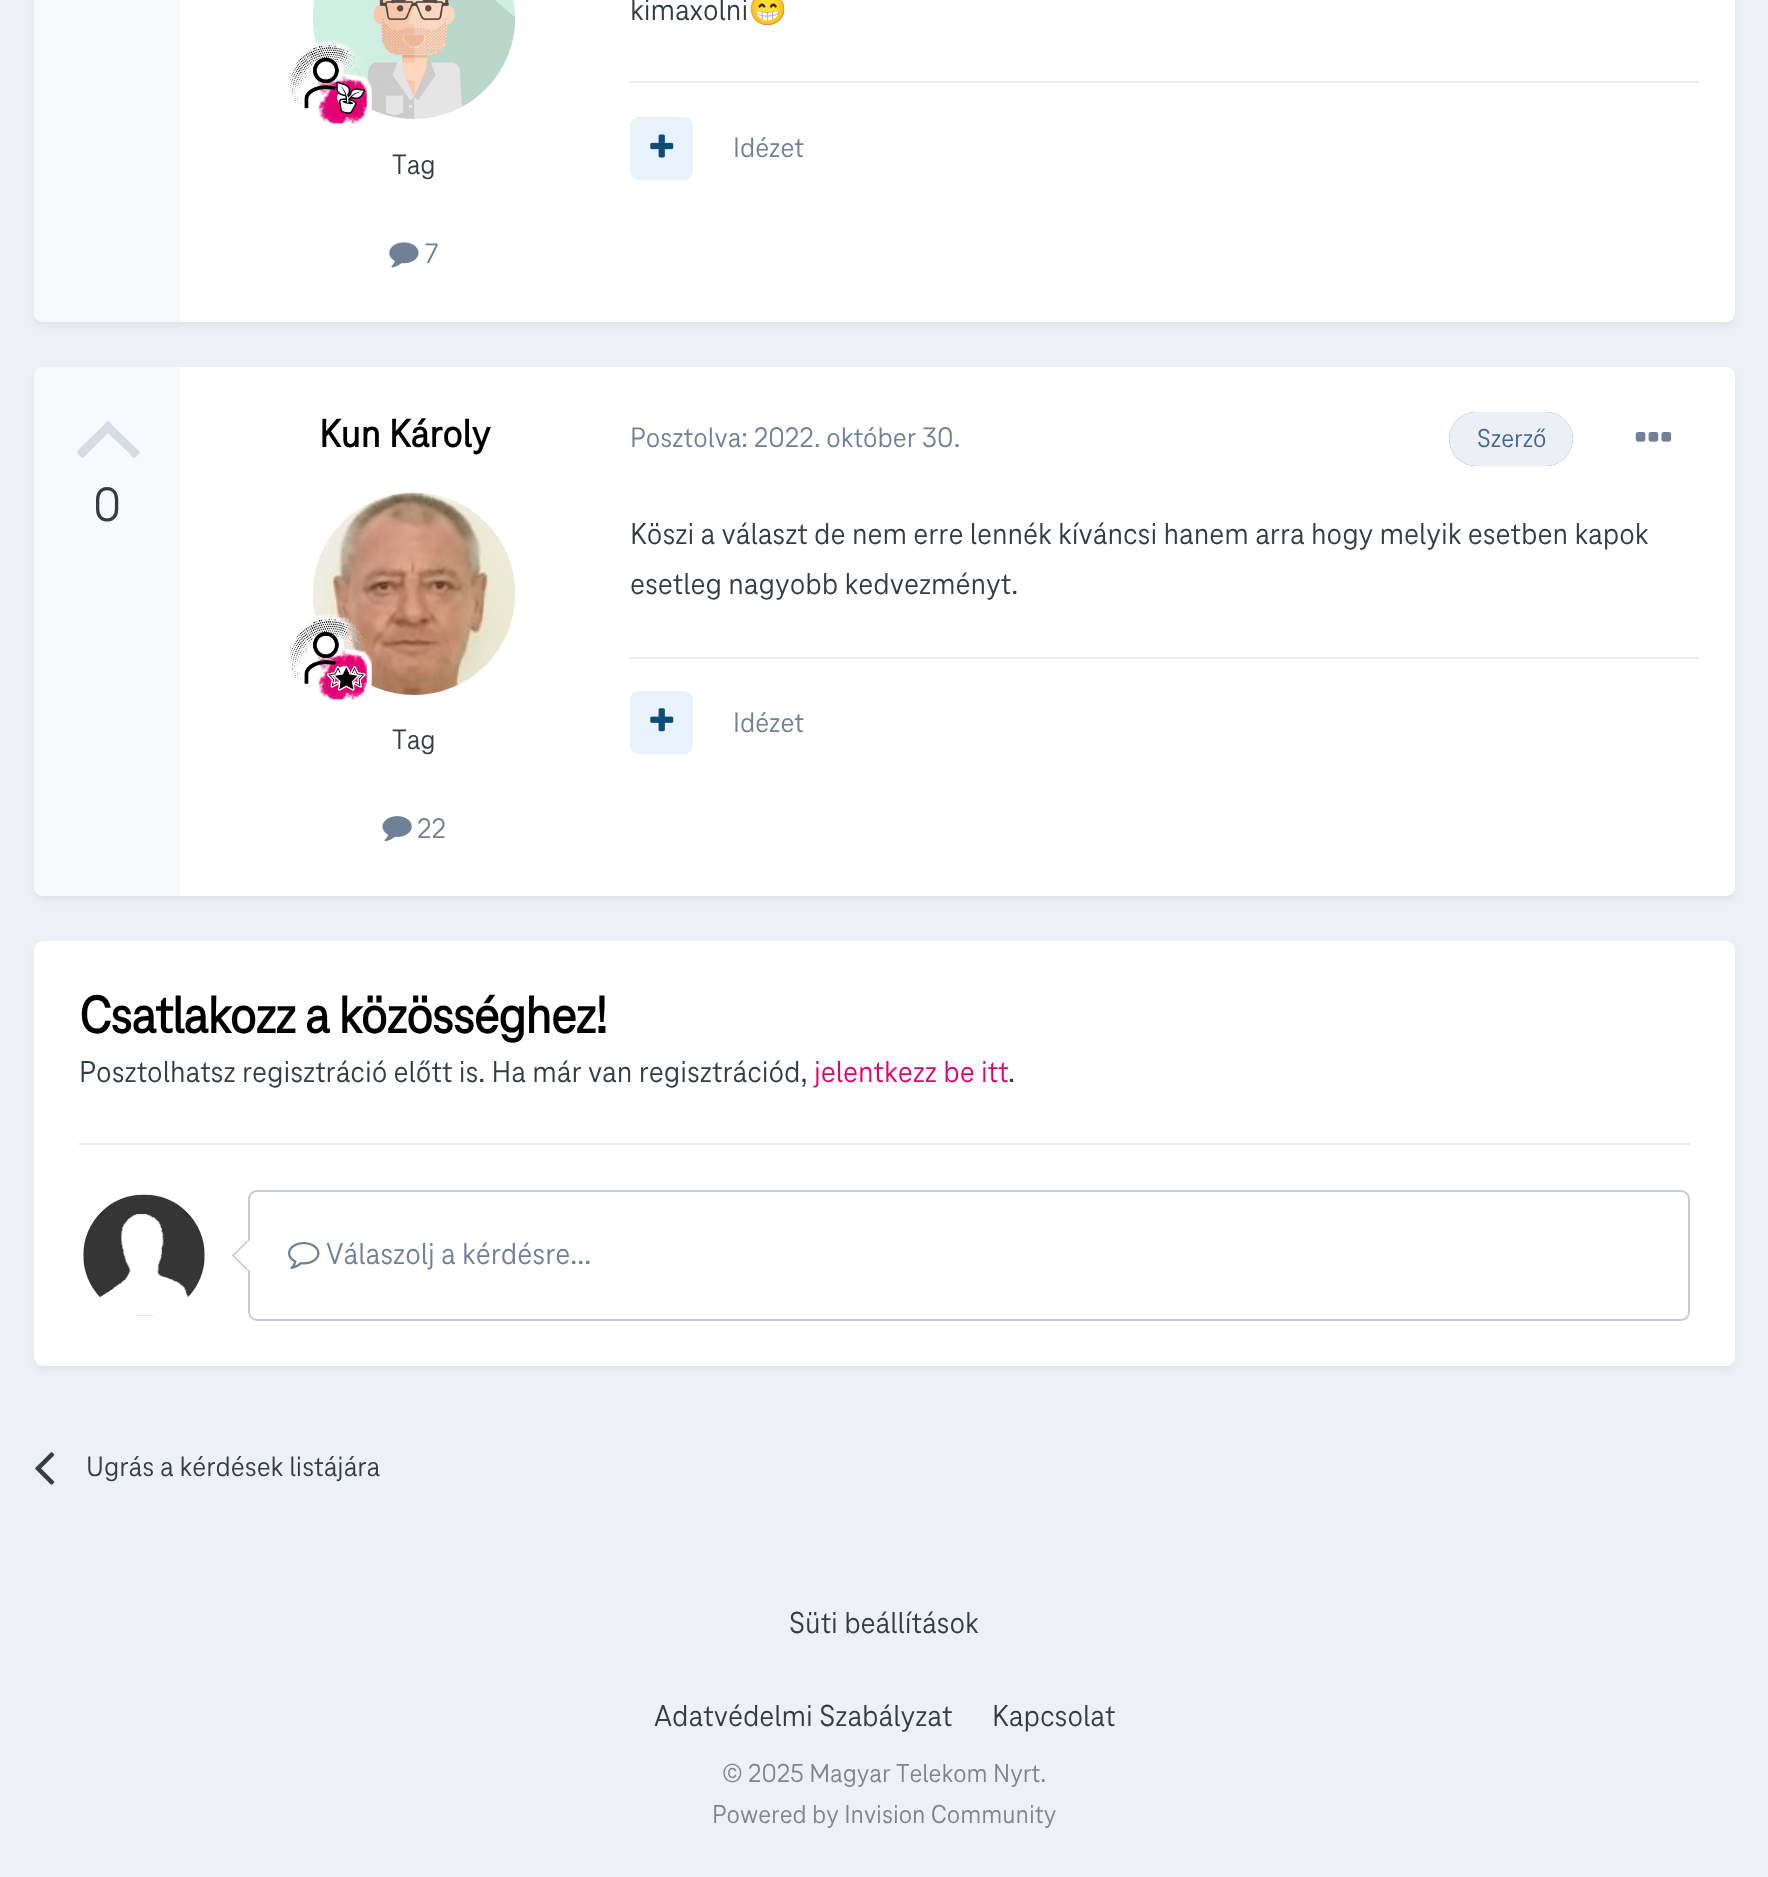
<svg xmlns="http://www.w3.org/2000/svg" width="1768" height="1877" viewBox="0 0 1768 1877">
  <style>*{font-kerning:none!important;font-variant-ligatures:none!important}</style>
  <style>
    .t1 { font: 31.5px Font; fill: #353c41; }
    .t2 { font: 31.5px Noto Color Emoji; fill: #353c41; }
    .t3 { font: 29.25px Font; fill: #718096; }
    .t4 { font: 29.25px Font; fill: #353c41; }
    .t5 { font: 50px Font; fill: #353c41; }
    .t6 { font: bold 40.5px Font; fill: #000; }
    .t7 { font: 27px Font; fill: #3d6594; }
    .t8 { font: bold 54px Font; letter-spacing: -1.1px; fill: #000; }
    .t9 { font: 31.5px Font; fill: #e20074; }
    .t10 { font: 31.5px Font; fill: #718096; }
    .t11 { font: 27px Font; fill: #7f8489; }
  </style>
  <rect width="100%" height="100%" fill="#edf0f4"/>
  <rect x="36" y="-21" width="1697" height="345" rx="7" fill="#2d37481a" filter="blur(4.5px)"/>
  <rect x="34" y="-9" width="1701" height="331" rx="9" fill="#fff"/>
  <path d="M43-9H180V322H43C38 322 34 318 34 313V0C34-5 38-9 43-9Z" fill="#f7fafc"/>
  <text x="630" y="20" class="t1">kimaxolni</text>
  <text x="748" y="20" class="t2">😁</text>
  <rect x="630" y="81" width="1069" height="2" fill="#ebecec"/>
  <rect x="630" y="117" width="63" height="63" rx="9" fill="#e8f2fa"/>
  <image x="650" y="134" width="24" height="24" href="images/1.png"/>
  <text x="733" y="157" class="t3">Idézet</text>
  <image x="313" y="0" width="202" height="119" href="images/2.png"/>
  <image x="288" y="40" width="84" height="84" href="images/3.png"/>
  <text x="392" y="174" class="t4">Tag</text>
  <image x="389" y="242" width="30" height="26" href="images/4.png"/>
  <text x="425" y="263" class="t3">7</text>
  <rect x="36" y="374" width="1697" height="524" rx="7" fill="#2d37481a" filter="blur(4.5px)"/>
  <rect x="34" y="367" width="1701" height="529" rx="9" fill="#fff"/>
  <path d="M43 367H180V896H43C38 896 34 892 34 887V376C34 371 38 367 43 367Z" fill="#f7fafc"/>
  <path d="M139 451C141 453 138 455 137 456C133 460 132 457 129 453L108 433L83 458C82 458 80 457 80 456C75 451 77 452 82 446L102 427C109 419 107 419 114 427Z" fill="#d6dce3"/>
  <text x="93" y="521" class="t5">0</text>
  <text x="319" y="447" class="t6">Kun Károly</text>
  <image x="313" y="492" width="202" height="203" href="images/5.png"/>
  <image x="289" y="614" width="83" height="86" href="images/6.png"/>
  <text x="392" y="749" class="t4">Tag</text>
  <image x="382" y="816" width="30" height="26" href="images/7.png"/>
  <text x="417" y="838" class="t3">22</text>
  <text x="630" y="447" class="t3">Posztolva: 2022. október 30.</text>
  <rect x="1449" y="412" width="124" height="54" rx="27" fill="#3d6594"/>
  <rect x="1449" y="412" width="124" height="54" rx="27" fill="#ffffffe6"/>
  <text x="1477" y="447" class="t7">Szerző</text>
  <image x="1635" y="432" width="37" height="10" href="images/8.png"/>
  <text x="630" y="544" class="t1">Köszi a választ de nem erre lennék kíváncsi hanem arra hogy melyik esetben kapok</text>
  <text x="630" y="594" class="t1">esetleg nagyobb kedvezményt.</text>
  <rect x="630" y="657" width="1069" height="2" fill="#ebecec"/>
  <rect x="630" y="691" width="63" height="63" rx="9" fill="#e8f2fa"/>
  <image x="650" y="708" width="24" height="24" href="images/9.png"/>
  <text x="733" y="732" class="t3">Idézet</text>
  <rect x="36" y="947" width="1697" height="421" rx="7" fill="#2d37481a" filter="blur(4.5px)"/>
  <rect x="34" y="941" width="1701" height="425" rx="9" fill="#fff"/>
  <rect x="79" y="1143" width="1611" height="2" fill="#eaecef"/>
  <text x="79" y="1033" class="t8">Csatlakozz a közösséghez!</text>
  <text x="79" y="1082" class="t1">Posztolhatsz regisztráció előtt is. Ha már van regisztrációd,</text>
  <text x="814" y="1082" class="t9">jelentkezz be itt</text>
  <text x="1008" y="1082" class="t1">.</text>
  <image x="83" y="1194" width="122" height="122" href="images/10.png"/>
  <rect x="249" y="1191" width="1440" height="129" rx="8" fill="none" stroke="#c6ccd5" stroke-width="2"/>
  <path d="M247.5 1240V1271L232 1255.5Z" fill="#c6ccd5"/>
  <path d="M250 1240V1271L234 1255.5Z" fill="#fff"/>
  <image x="288" y="1242" width="32" height="27" href="images/11.png"/>
  <text x="326" y="1264" class="t10">Válaszolj a kérdésre...</text>
  <image x="35" y="1452" width="20" height="33" href="images/12.png"/>
  <text x="86" y="1476" class="t4">Ugrás a kérdések listájára</text>
  <text x="789" y="1633" class="t1">Süti beállítások</text>
  <text x="654" y="1726" class="t1">Adatvédelmi Szabályzat</text>
  <text x="992" y="1726" class="t1">Kapcsolat</text>
  <text x="722" y="1782" class="t11">© 2025 Magyar Telekom</text>
  <text x="993" y="1782" class="t11">Nyrt.</text>
  <text x="712" y="1823" class="t11">Powered by Invision Community</text>
</svg>
